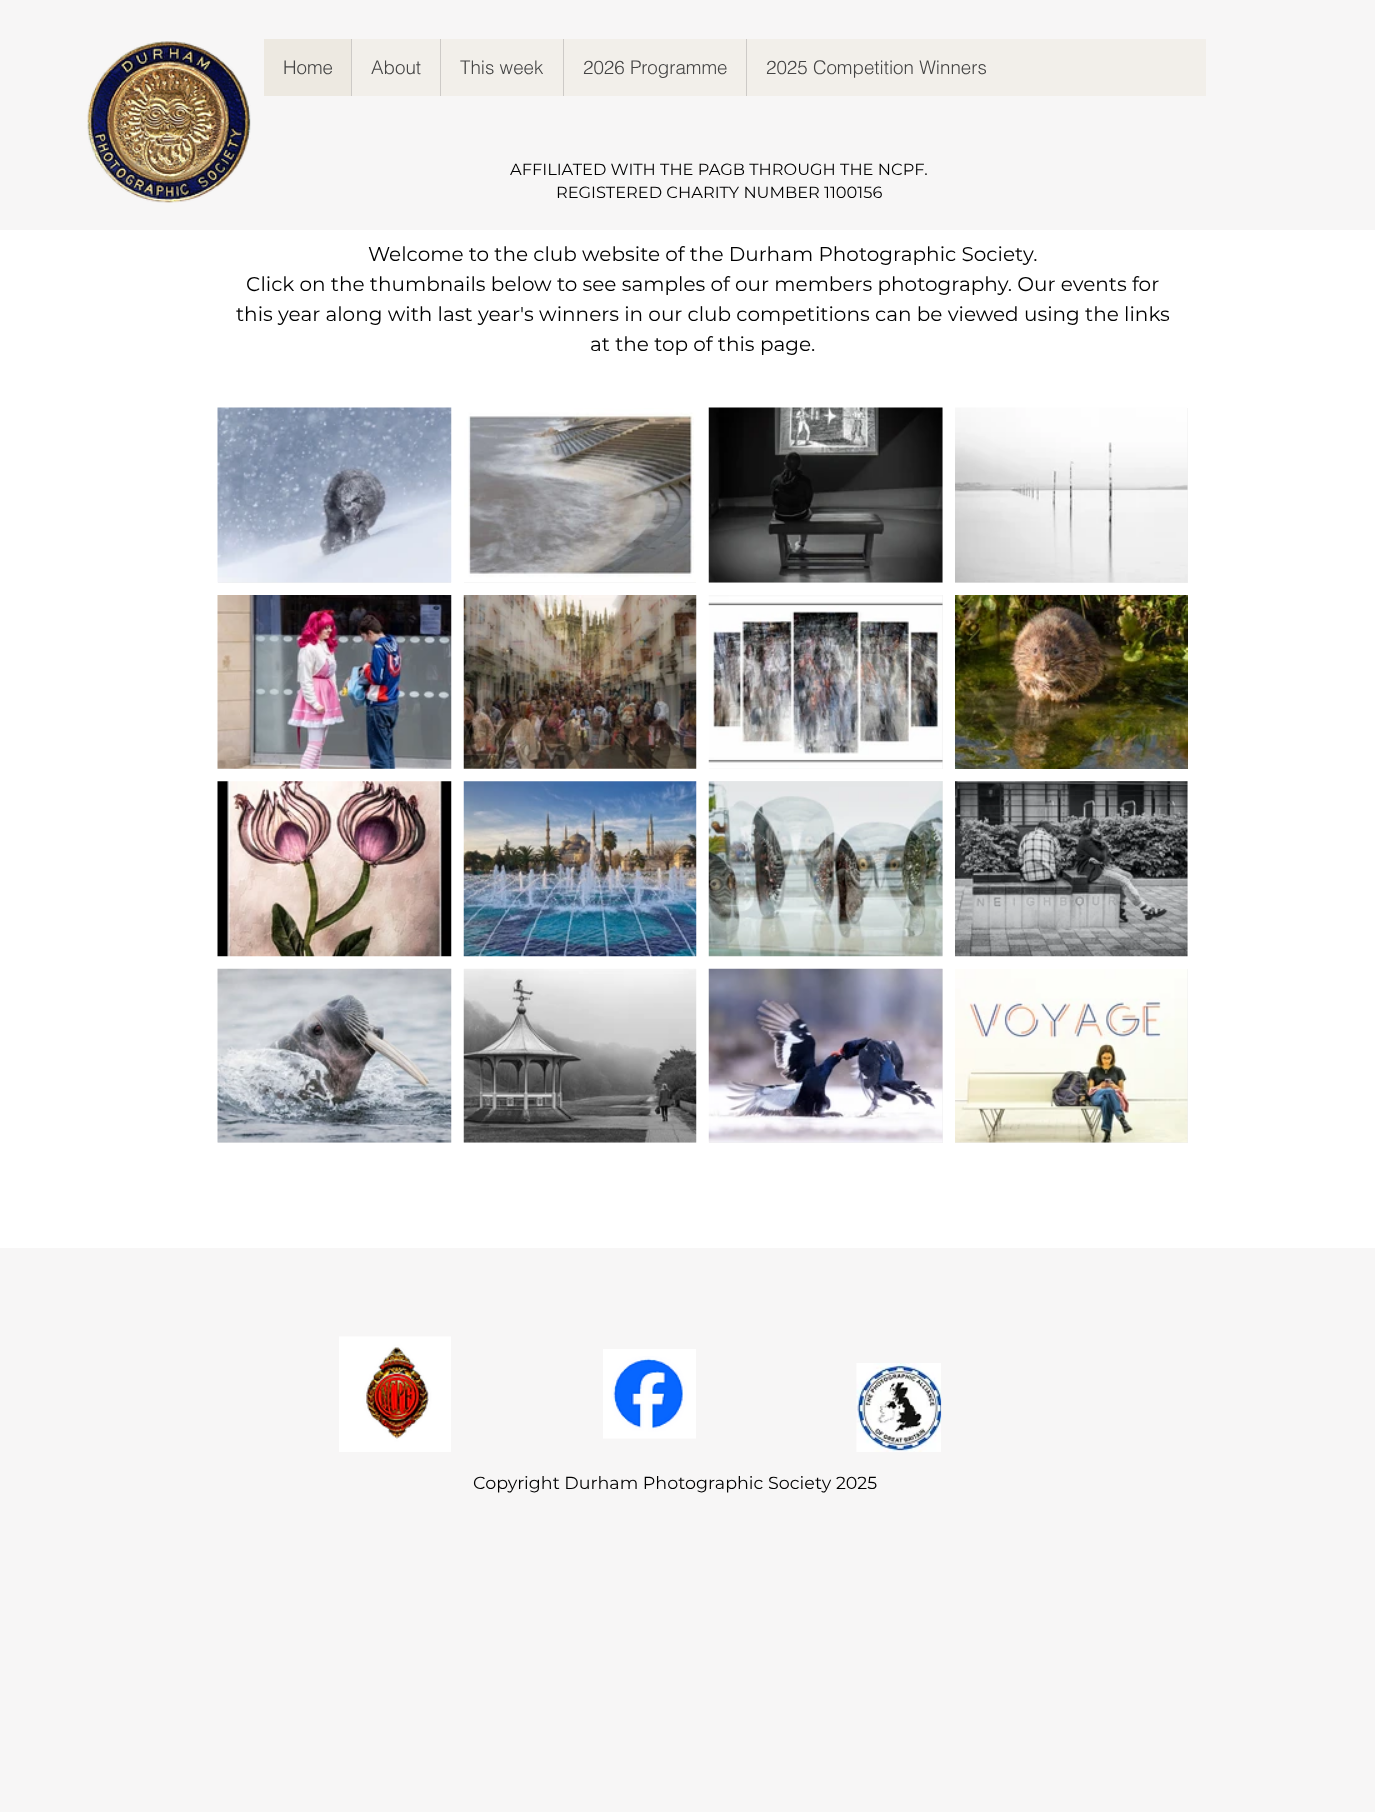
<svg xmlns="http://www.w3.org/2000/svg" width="1375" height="1812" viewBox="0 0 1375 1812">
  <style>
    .t1 { font: 300 18.75px helvetica; fill: #444; }
    .t2 { font: 16.25px Montserrat; fill: #000; }
    .t3 { font: 20px Montserrat; fill: #000; }
    .t4 { font: 17.5px Montserrat; fill: #000; }
  </style>
  <rect width="100%" height="100%" fill="#f7f6f6"/>
  <image x="87" y="41" width="164" height="162" href="images/1.png"/>
  <rect x="352" y="39" width="854" height="57" fill="#f2efea"/>
  <rect x="264" y="39" width="87" height="57" fill="#ede9e1"/>
  <text x="283" y="74" class="t1">Home</text>
  <rect x="351" y="39" width="1" height="57" fill="#cdcac7"/>
  <text x="371" y="74" class="t1">About</text>
  <rect x="440" y="39" width="1" height="57" fill="#cdcac7"/>
  <text x="460" y="74" class="t1">This week</text>
  <rect x="563" y="39" width="1" height="57" fill="#cdcac7"/>
  <text x="583" y="74" class="t1">2026 Programme</text>
  <rect x="746" y="39" width="1" height="57" fill="#cdcac7"/>
  <text x="766" y="74" class="t1">2025 Competition Winners</text>
  <text x="510" y="175" class="t2">AFFILIATED WITH THE PAGB THROUGH THE NCPF.</text>
  <text x="556" y="198" class="t2">REGISTERED CHARITY NUMBER 1100156</text>
  <rect x="0" y="230" width="1375" height="1018" fill="#fff"/>
  <text x="368" y="261" class="t3">Welcome to the club website of the Durham Photographic Society.</text>
  <text x="246" y="291" class="t3">Click on the thumbnails below to see samples of our members photography. Our events for</text>
  <text x="236" y="321" class="t3">this year along with last year's winners in our club competitions can be viewed using the links</text>
  <text x="590" y="351" class="t3">at the top of this page.</text>
  <rect x="218" y="582" width="233" height="1" fill="#efefef"/>
  <image x="217" y="407" width="235" height="176" href="images/2.png"/>
  <rect x="464" y="582" width="232" height="1" fill="#efefef"/>
  <image x="464" y="408" width="232" height="175" href="images/3.png"/>
  <rect x="709" y="408" width="234" height="175" fill="#efefef"/>
  <image x="708" y="407" width="235" height="176" href="images/4.png"/>
  <rect x="955" y="408" width="233" height="175" fill="#efefef"/>
  <image x="955" y="407" width="233" height="176" href="images/5.png"/>
  <image x="217" y="595" width="235" height="174" href="images/6.png"/>
  <image x="463" y="595" width="234" height="174" href="images/7.png"/>
  <rect x="709" y="595" width="234" height="174" fill="#efefef"/>
  <image x="708" y="595" width="235" height="174" href="images/8.png"/>
  <image x="955" y="595" width="233" height="174" href="images/9.png"/>
  <image x="217" y="781" width="235" height="176" href="images/10.png"/>
  <image x="463" y="781" width="234" height="176" href="images/11.png"/>
  <rect x="709" y="781" width="234" height="175" fill="#efefef"/>
  <image x="708" y="781" width="235" height="176" href="images/12.png"/>
  <rect x="955" y="781" width="233" height="175" fill="#efefef"/>
  <image x="955" y="781" width="233" height="176" href="images/13.png"/>
  <rect x="218" y="1142" width="233" height="1" fill="#efefef"/>
  <image x="217" y="968" width="235" height="175" href="images/14.png"/>
  <rect x="464" y="1142" width="232" height="1" fill="#efefef"/>
  <image x="463" y="968" width="234" height="175" href="images/15.png"/>
  <rect x="709" y="969" width="234" height="174" fill="#efefef"/>
  <image x="708" y="968" width="235" height="175" href="images/16.png"/>
  <rect x="955" y="969" width="233" height="174" fill="#efefef"/>
  <image x="955" y="969" width="233" height="174" href="images/17.png"/>
  <image x="339" y="1336" width="112" height="116" href="images/18.png"/>
  <image x="603" y="1349" width="93" height="90" href="images/19.png"/>
  <image x="856" y="1363" width="86" height="89" href="images/20.png"/>
  <text x="473" y="1489" class="t4">Copyright Durham Photographic Society 2025</text>
</svg>
